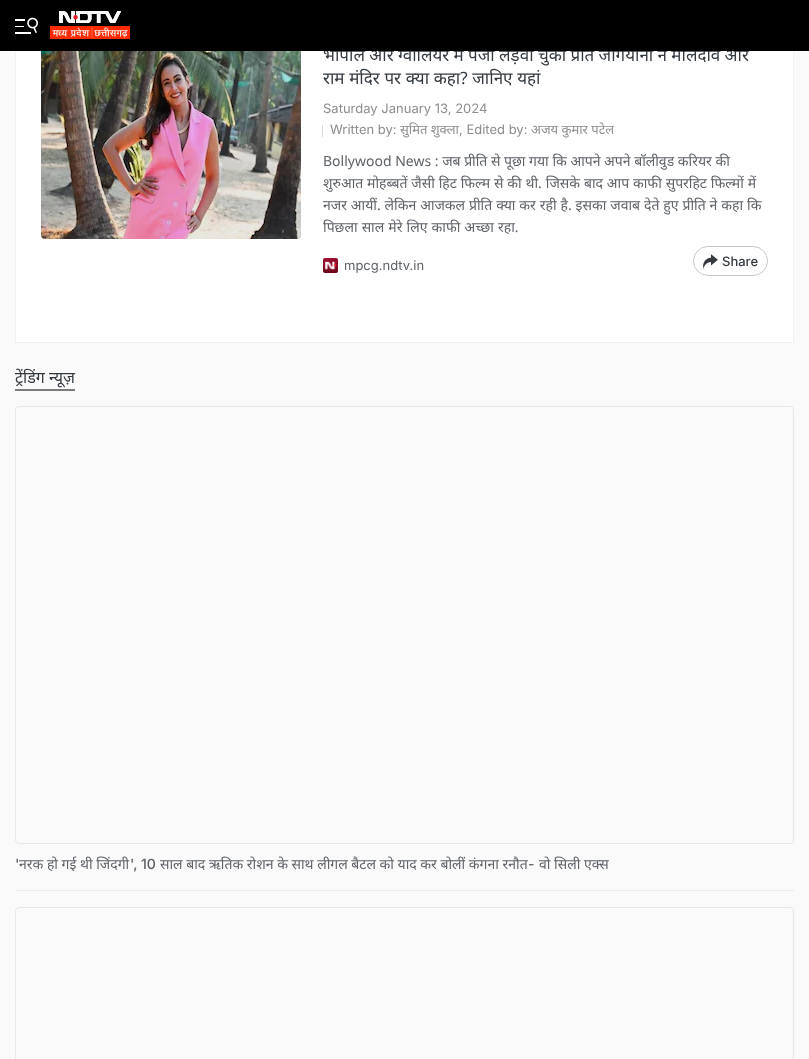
<svg xmlns="http://www.w3.org/2000/svg" width="809" height="1059" viewBox="0 0 809 1059">
  <style>
    .t1 { font: 17px Noto Sans; fill: #343a40; }
    .t2 { font: 13px Inter; fill: #8e8e8e; }
    .t3 { font: 13px Noto Sans; fill: #8e8e8e; }
    .t4 { font: 14px Noto Sans; fill: #5f6368; }
    .t5 { font: 13px Inter; fill: #5f6368; }
    .t6 { font: 500 13px Inter; fill: #343a40; }
    .t7 { font: 16px Noto Sans; fill: #343a40; }
    .t8 { font: 500 14px Inter; fill: #5f6368; }
  </style>
  <defs>
    <clipPath id="clip1"><rect x="323" y="150" width="445" height="88"/></clipPath>
  </defs>
  <rect width="100%" height="100%" fill="#fafafa"/>
  <rect x="16" y="51" width="777" height="291" fill="#fff"/>
  <rect x="15.5" y="-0.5" width="778" height="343" fill="none" stroke="#f2f2f2"/>
  <rect x="41.5" y="44.5" width="259" height="194" rx="3.5" fill="none" stroke="#e5e7e8"/>
  <text x="323" y="61" word-spacing="-0.1" class="t1">भोपाल और ग्वालियर में पंजा लड़वा चुकीं प्रति जंगियानी ने मालदीव और</text>
  <rect x="0" y="0" width="809" height="51" fill="#000"/>
  <image x="15" y="17" width="23" height="17" href="images/1.png"/>
  <image x="50" y="11" width="80" height="28" href="images/2.png"/>
  <image x="41" y="51" width="260" height="188" href="images/3.png"/>
  <text x="323" y="84" word-spacing="0.25" class="t1">राम मंदिर पर क्या कहा? जानिए यहां</text>
  <text x="323" y="113" class="t2">Saturday January 13, 2024</text>
  <rect x="322" y="125" width="1" height="12" fill="#dadada"/>
  <text x="330" y="134" class="t2">Written by:</text>
  <text x="400" y="134" class="t3">सुमित शुक्ला</text>
  <text x="459" y="134" class="t2">, Edited by:</text>
  <text x="531" y="134" class="t3">अजय कुमार पटेल</text>
  <text x="323" y="166" class="t4">Bollywood News : जब प्रीति से पूछा गया कि आपने अपने बॉलीवुड करियर की</text>
  <g clip-path="url(#clip1)">
    <text x="323" y="188" word-spacing="0.25" class="t4">शुरुआत मोहब्बतें जैसी हिट फिल्म से की थी. जिसके बाद आप काफी सुपरहिट फिल्मों में</text>
  </g>
  <text x="323" y="210" word-spacing="0.3" class="t4">नजर आयीं. लेकिन आजकल प्रीति क्या कर रही है. इसका जवाब देते हुए प्रीति ने कहा कि</text>
  <text x="323" y="232" word-spacing="0.5" class="t4">पिछला साल मेरे लिए काफी अच्छा रहा.</text>
  <image x="323" y="258" width="15" height="15" href="images/4.png"/>
  <text x="344" y="270" class="t5">mpcg.ndtv.in</text>
  <rect x="693.5" y="246.5" width="74" height="29" rx="14.5" fill="none" stroke="#c7c7c7"/>
  <image x="703" y="254" width="15" height="15" href="images/5.png"/>
  <text x="722" y="266" class="t6">Share</text>
  <rect x="15" y="389" width="60" height="2" fill="#7c7c7c"/>
  <text x="15" y="383" class="t7">ट्रेंडिंग न्यूज़</text>
  <rect x="15" y="890" width="779" height="1" fill="#ececec"/>
  <rect x="15.5" y="406.5" width="778" height="437" rx="3.5" fill="none" stroke="#e5e7e8"/>
  <text x="15" y="869" class="t8">'</text>
  <text x="19" y="869" class="t4">नरक हो गई थी जिंदगी</text>
  <text x="130" y="869" class="t8">', 10</text>
  <text x="160" y="869" class="t4">साल बाद ऋतिक रोशन के साथ लीगल बैटल को याद कर बोलीं कंगना रनौत</text>
  <text x="528" y="869" class="t8">-</text>
  <text x="539" y="869" class="t4">वो सिली एक्स</text>
  <rect x="15.5" y="907.5" width="778" height="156" rx="3.5" fill="none" stroke="#e5e7e8"/>
</svg>
